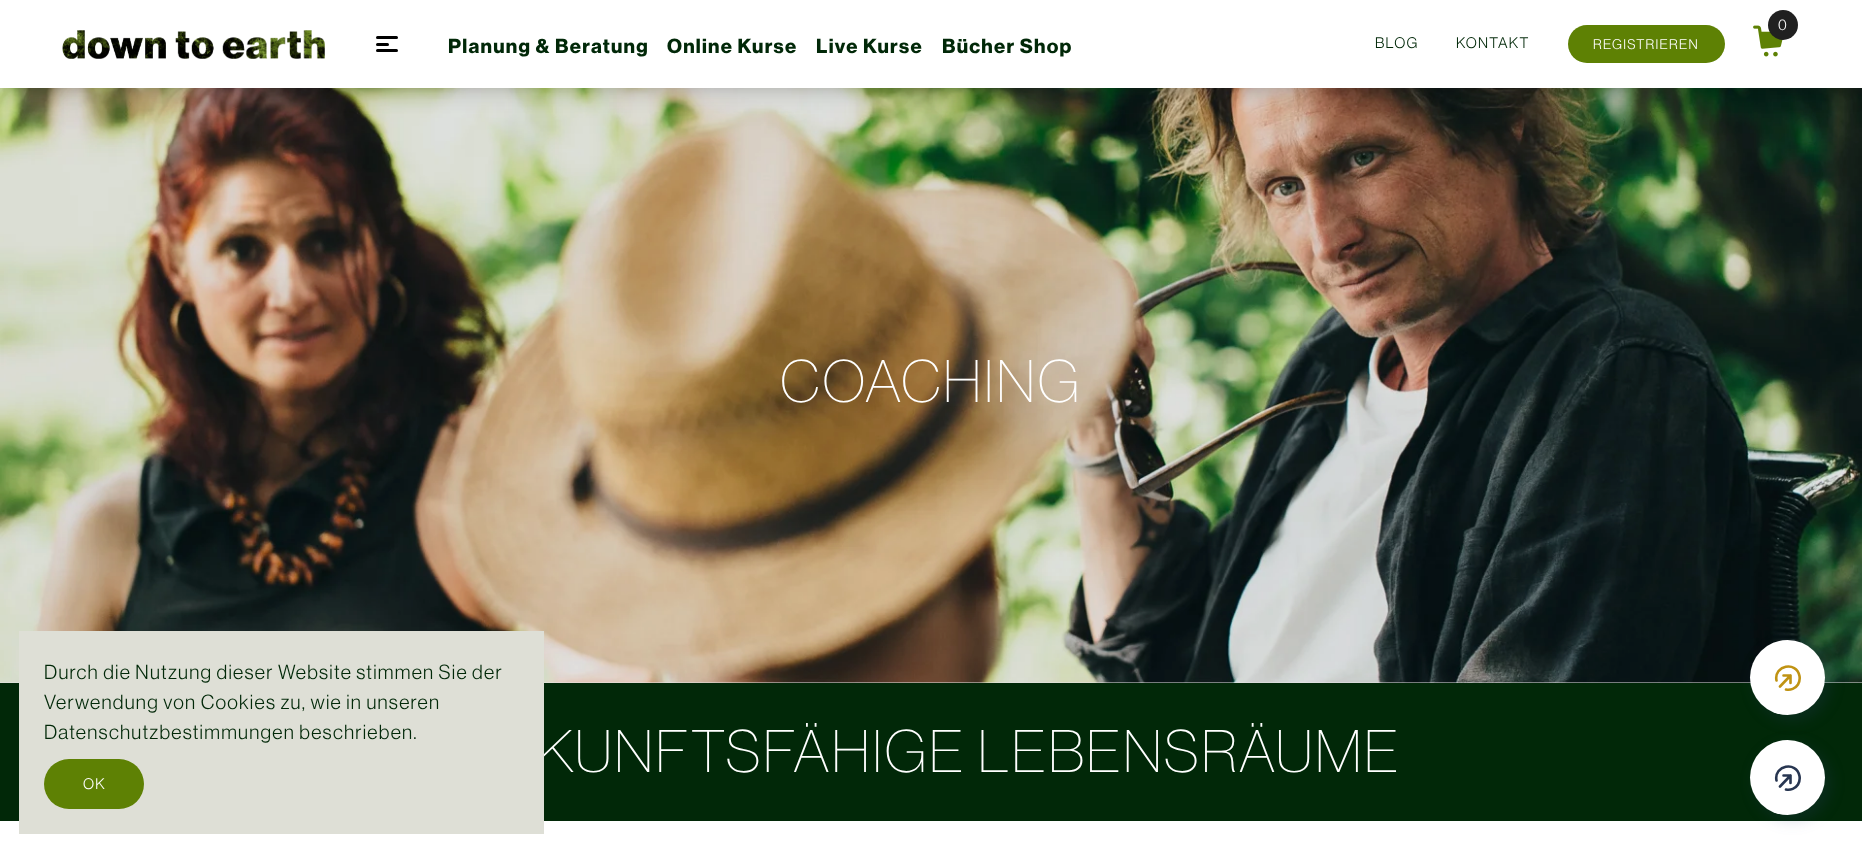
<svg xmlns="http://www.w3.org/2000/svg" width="1862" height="852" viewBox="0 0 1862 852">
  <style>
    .t1 { font: bold 20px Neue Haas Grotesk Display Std; letter-spacing: 1.25px; fill: #012808; }
    .t2 { font: 15px Neue Haas Grotesk Display Std; letter-spacing: 1.25px; fill: #fff; }
    .t3 { font: 15px Neue Haas Grotesk Display Std; letter-spacing: 1.25px; fill: #012808; }
    .t4 { font: 13.75px Neue Haas Grotesk Display Std; letter-spacing: 1.25px; fill: #fff; }
    .t5 { font: 300 58.75px Neue Haas Grotesk Display Std; letter-spacing: 2.5px; fill: #fff; }
    .t6 { font: 20px Neue Haas Grotesk Display Std; letter-spacing: 1.25px; fill: #012808; }
  </style>
  <rect width="100%" height="100%" fill="#fff"/>
  <rect x="0" y="682" width="1862" height="1" fill="#e6e6e6"/>
  <image x="0" y="88" width="1862" height="595" href="images/3.png"/>
  <rect x="0" y="-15" width="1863" height="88" fill="#000000b3" filter="blur(17px)"/>
  <rect x="0" y="0" width="1862" height="88" fill="#fff"/>
  <image x="62" y="30" width="263" height="29" href="images/1.png"/>
  <rect x="376" y="36" width="22" height="3" rx="1.5" fill="#000"/>
  <rect x="376" y="43" width="13" height="3" rx="1.5" fill="#000"/>
  <rect x="376" y="49" width="22" height="3" rx="1.5" fill="#000"/>
  <text x="448" y="53" class="t1">Planung &amp; Beratung</text>
  <text x="667" y="53" class="t1">Online Kurse</text>
  <text x="816" y="53" class="t1">Live Kurse</text>
  <text x="942" y="53" class="t1">Bücher Shop</text>
  <image x="1753" y="25" width="30" height="32" href="images/2.png"/>
  <circle cx="1783" cy="25" r="15" fill="#202020"/>
  <text x="1778" y="30" class="t2">0</text>
  <text x="1375" y="48" class="t3">BLOG</text>
  <text x="1456" y="48" class="t3">KONTAKT</text>
  <rect x="1568" y="25" width="157" height="38" rx="19" fill="#5e8104"/>
  <text x="1593" y="49" class="t4">REGISTRIEREN</text>
  <rect x="0" y="683" width="1862" height="138" fill="#012808"/>
  <text x="538" y="772" class="t5">KUNFTSFÄHIGE LEBENSRÄUME</text>
  <rect x="19" y="631" width="525" height="203" fill="#dedfd6"/>
  <text x="44" y="679" class="t6">Durch die Nutzung dieser Website stimmen Sie der</text>
  <text x="44" y="709" class="t6">Verwendung von Cookies zu, wie in unseren</text>
  <text x="44" y="739" class="t6">Datenschutzbestimmungen beschrieben.</text>
  <rect x="44" y="759" width="100" height="50" rx="25" fill="#5e8104"/>
  <text x="83" y="789" class="t2">OK</text>
  <text x="780" y="402" class="t5">COACHING</text>
  <rect x="1755" y="745" width="75" height="75" rx="37.5" fill="#39417c33" filter="blur(7.5px)"/>
  <circle cx="1787.5" cy="777.5" r="37.5" fill="#fff"/>
  <rect x="1755" y="645" width="75" height="75" rx="37.5" fill="#39417c33" filter="blur(7.5px)"/>
  <circle cx="1787.5" cy="677.5" r="37.5" fill="#fff"/>
  <path d="M1790.5 683V675.5M1790.5 675.5H1783.5M1790.5 675.5L1780 686.5M1786 689.5C1790.5 690.5 1795.5 688.5 1798 684.5C1799.5 682 1800 679 1799.5 676C1796.5 660.5 1773.5 665.5 1776.5 680.5" fill="none" stroke="#c09313" stroke-width="2.6" stroke-linecap="round" stroke-linejoin="round"/>
  <path d="M1790.5 783V775.5M1790.5 775.5H1783.5M1790.5 775.5L1780 786.5M1786 789.5C1790.5 790.5 1795.5 788.5 1798 784.5C1799.5 782 1800 779 1799.5 776C1796.5 760.5 1773.5 765.5 1776.5 780.5" fill="none" stroke="#283651" stroke-width="2.6" stroke-linecap="round" stroke-linejoin="round"/>
</svg>
